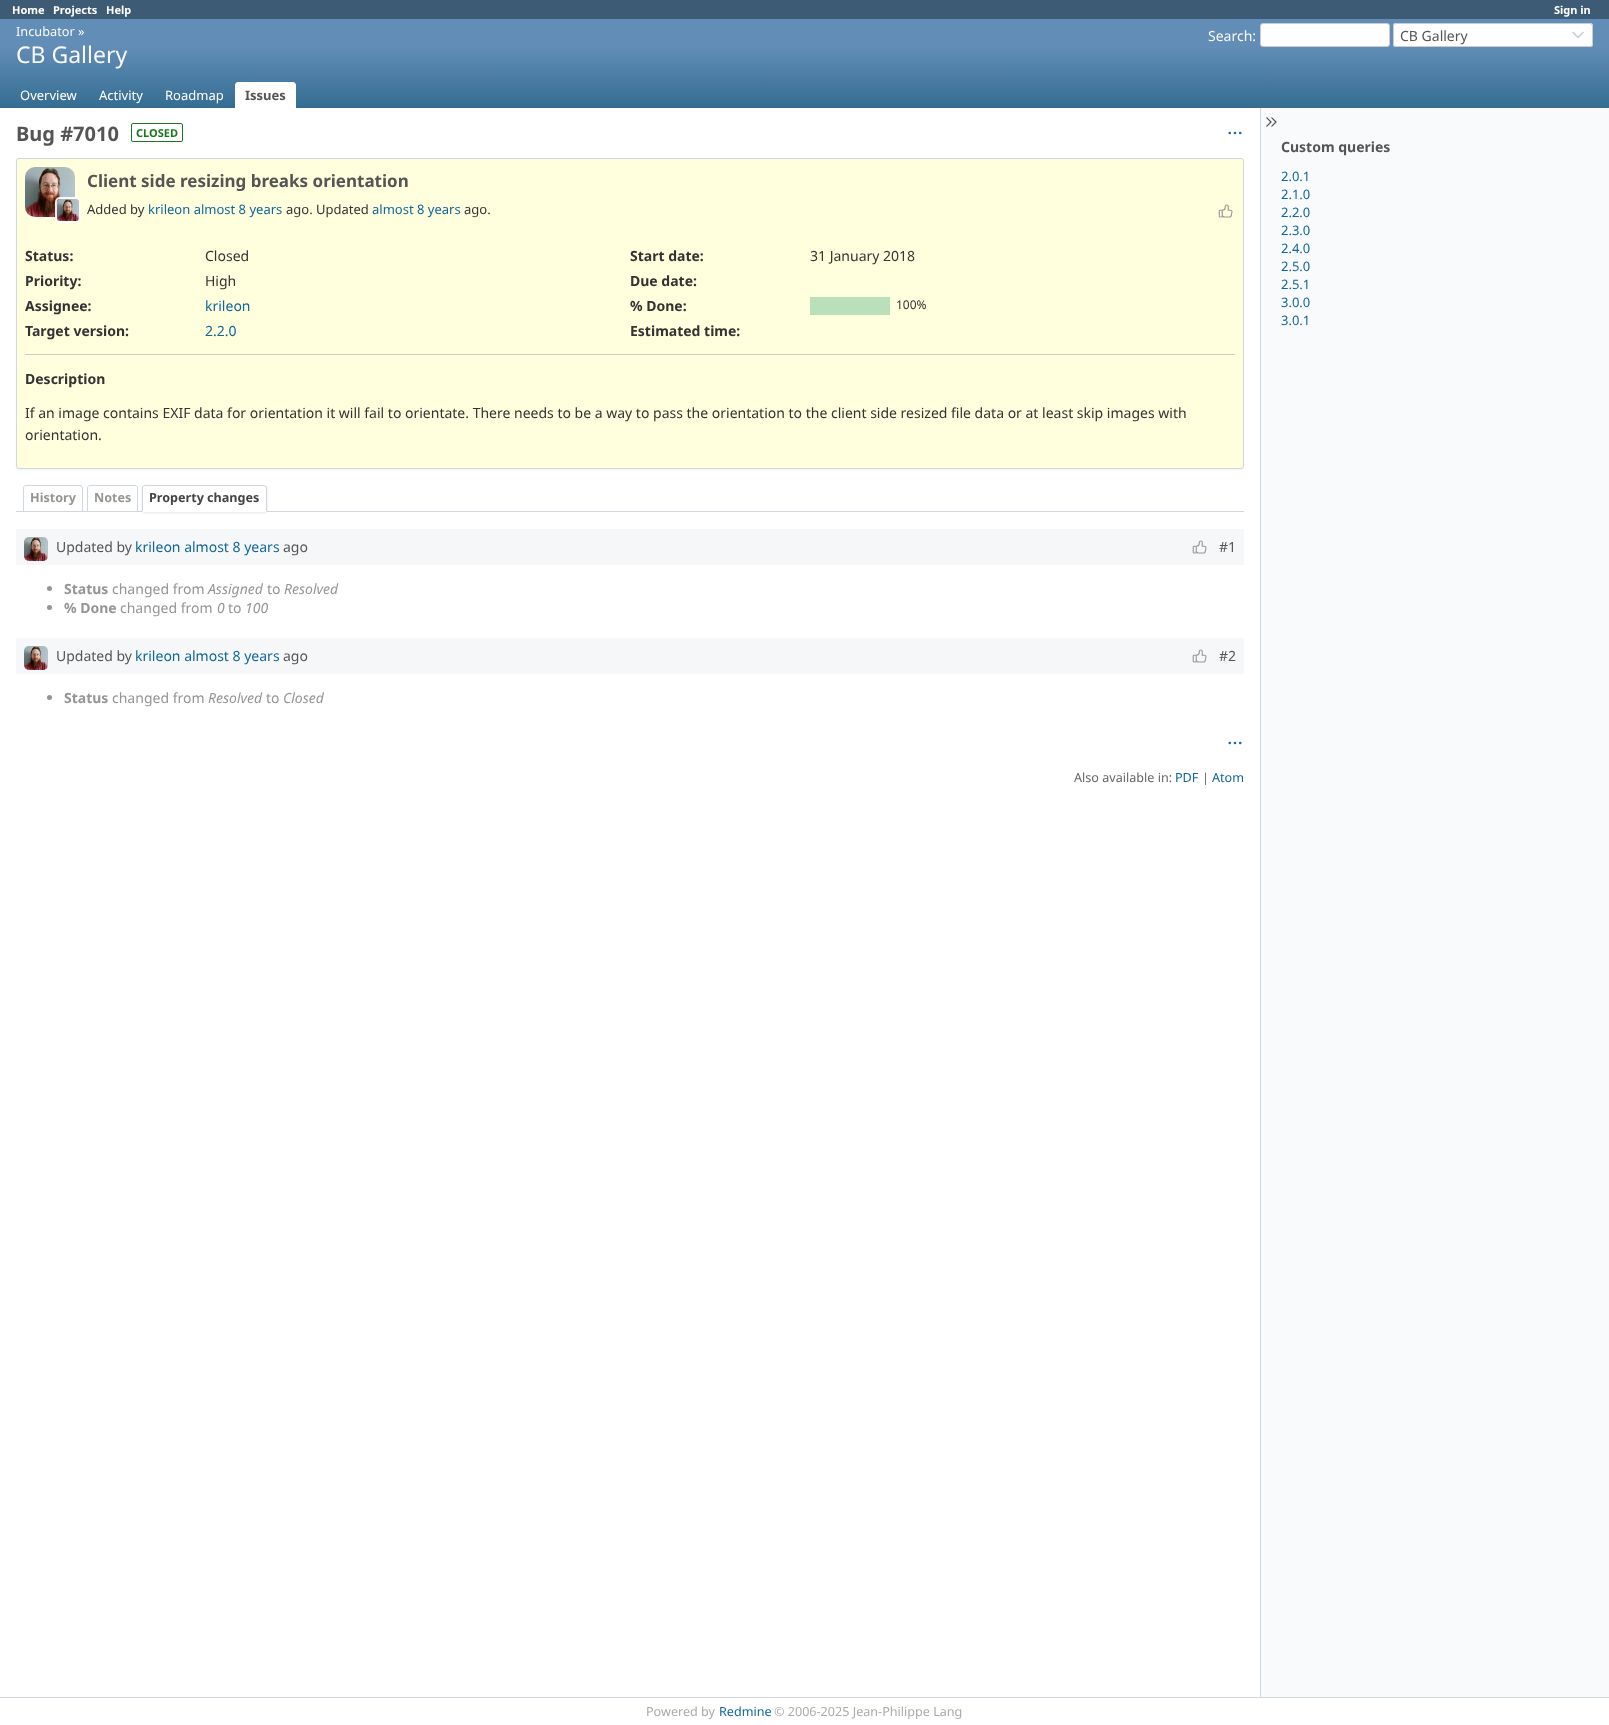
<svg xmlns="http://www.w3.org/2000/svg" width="1609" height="1725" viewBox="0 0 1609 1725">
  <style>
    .t1 { font: bold 11px Noto Sans; fill: #fff; }
    .t2 { font: 12.75px Noto Sans; fill: #f8f8f8; }
    .t3 { font: 23px Noto Sans; fill: #f8f8f8; }
    .t4 { font: 14px Noto Sans; fill: #f8f8f8; }
    .t5 { font: 14px Noto Sans; fill: #555; }
    .t6 { font: 13px Noto Sans; fill: #fff; }
    .t7 { font: bold 13px Noto Sans; fill: #555; }
    .t8 { font: bold 20px Noto Sans; fill: #555; }
    .t9 { font: bold 11px Noto Sans; fill: #1d781d; }
    .t10 { font: bold 17px Noto Sans; fill: #555; }
    .t11 { font: 13px Noto Sans; fill: #333; }
    .t12 { font: 13px Noto Sans; fill: #169; }
    .t13 { font: bold 14px Noto Sans; fill: #333; }
    .t14 { font: 14px Noto Sans; fill: #333; }
    .t15 { font: 14px Noto Sans; fill: #169; }
    .t16 { font: 12px Noto Sans; fill: #333; }
    .t17 { font: bold 12.6px Noto Sans; fill: #959595; }
    .t18 { font: bold 12.6px Noto Sans; fill: #444; }
    .t19 { font: bold 14px Noto Sans; fill: #959595; }
    .t20 { font: 14px Noto Sans; fill: #959595; }
    .t21 { font: italic 14px Noto Sans; fill: #959595; }
    .t22 { font: 12.6px Noto Sans; fill: #666; }
    .t23 { font: 12.6px Noto Sans; fill: #169; }
    .t24 { font: bold 14px Noto Sans; fill: #555; }
    .t25 { font: 12.6px Noto Sans; fill: #aaa; }
  </style>
  <defs>
    <linearGradient id="g1" gradientUnits="userSpaceOnUse" x1="805" y1="19" x2="805" y2="108"><stop offset="0.3" stop-color="#628db6"/><stop offset="1" stop-color="#356d92"/></linearGradient>
  </defs>
  <rect width="100%" height="100%" fill="#fff"/>
  <rect x="0" y="0" width="1609" height="19" fill="#3e5b76"/>
  <text x="12" y="14" class="t1">Home</text>
  <text x="53" y="14" class="t1">Projects</text>
  <text x="106" y="14" class="t1">Help</text>
  <text x="1554" y="14" class="t1">Sign in</text>
  <rect x="0" y="19" width="1609" height="89" fill="url(#g1)"/>
  <text x="16" y="36" class="t2">Incubator »</text>
  <text x="16" y="63" class="t3">CB Gallery</text>
  <text x="1208" y="41" class="t4">Search:</text>
  <rect x="1260.5" y="23.5" width="129" height="23" rx="2.5" fill="#fff" stroke="#ccc"/>
  <rect x="1393" y="23" width="200" height="24" rx="3" fill="#fff"/>
  <path d="M1573 32.5L1578 37.5L1583 32.5" fill="none" stroke="#ccd" stroke-width="1.7" stroke-linecap="round" stroke-linejoin="round"/>
  <rect x="1393.5" y="23.5" width="199" height="23" rx="2.5" fill="none" stroke="#ccc"/>
  <text x="1400" y="41" class="t5">CB Gallery</text>
  <text x="20" y="100" class="t6">Overview</text>
  <text x="99" y="100" class="t6">Activity</text>
  <text x="165" y="100" class="t6">Roadmap</text>
  <path d="M238 82H293C294.5 82 296 83.5 296 85V108H235V85C235 83.5 236.5 82 238 82Z" fill="#fff"/>
  <text x="245" y="100" class="t7">Issues</text>
  <text x="16" y="141" class="t8">Bug #7010</text>
  <rect x="131.5" y="123.5" width="51" height="18" rx="1.5" fill="none" stroke="#1d781d"/>
  <text x="136" y="137" class="t9">CLOSED</text>
  <image x="1228" y="131" width="14" height="4" href="images/1.png"/>
  <rect x="16" y="159" width="1228" height="311" rx="3" fill="#0000000d" filter="blur(1px)"/>
  <rect x="16.5" y="158.5" width="1227" height="310" rx="2.5" fill="#ffd" stroke="#d0d7de"/>
  <image x="25" y="167" width="50" height="50" href="images/2.png"/>
  <rect x="56" y="198" width="24" height="24" rx="4" fill="none" stroke="#ffffffe6" stroke-width="2"/>
  <image x="57" y="199" width="22" height="22" href="images/3.png"/>
  <text x="87" y="187" class="t10">Client side resizing breaks orientation</text>
  <text x="87" y="214" class="t11">Added by</text>
  <text x="148" y="214" class="t12">krileon almost 8 years</text>
  <text x="286" y="214" class="t11">ago. Updated</text>
  <text x="372" y="214" class="t12">almost 8 years</text>
  <text x="464" y="214" class="t11">ago.</text>
  <image x="1218" y="204" width="15" height="14" href="images/4.png"/>
  <text x="25" y="261" class="t13">Status:</text>
  <text x="205" y="261" class="t14">Closed</text>
  <text x="25" y="286" class="t13">Priority:</text>
  <text x="205" y="286" class="t14">High</text>
  <text x="25" y="311" class="t13">Assignee:</text>
  <text x="205" y="311" class="t15">krileon</text>
  <text x="25" y="336" class="t13">Target version:</text>
  <text x="205" y="336" class="t15">2.2.0</text>
  <text x="630" y="261" class="t13">Start date:</text>
  <text x="810" y="261" class="t14">31 January 2018</text>
  <text x="630" y="286" class="t13">Due date:</text>
  <text x="630" y="311" class="t13">% Done:</text>
  <rect x="810" y="297" width="80" height="18" fill="#bae0ba"/>
  <text x="896" y="309" class="t16">100%</text>
  <text x="630" y="336" class="t13">Estimated time:</text>
  <rect x="25" y="354" width="1210" height="1" fill="#ccc"/>
  <text x="25" y="384" class="t13">Description</text>
  <text x="25" y="418" class="t14">If an image contains EXIF data for orientation it will fail to orientate. There needs to be a way to pass the orientation to the client side resized file data or at least skip images with</text>
  <text x="25" y="440" class="t14">orientation.</text>
  <rect x="16" y="511" width="1228" height="1" fill="#d0d7de"/>
  <path d="M26 485.5H80C81.5 485.5 82.5 486.5 82.5 488V511.5H23.5V488C23.5 486.5 24.5 485.5 26 485.5Z" fill="none" stroke="#d0d7de"/>
  <text x="30" y="502" class="t17">History</text>
  <path d="M90 485.5H135C136.5 485.5 137.5 486.5 137.5 488V511.5H87.5V488C87.5 486.5 88.5 485.5 90 485.5Z" fill="none" stroke="#d0d7de"/>
  <text x="94" y="502" class="t17">Notes</text>
  <rect x="142" y="486" width="125" height="27" rx="3" fill="#0000001a" filter="blur(1px)"/>
  <path d="M145 485H264C265.5 485 267 486.5 267 488V512H142V488C142 486.5 143.5 485 145 485Z" fill="#fff"/>
  <path d="M145 485L143 486L144 487L145 486H264L265 487L266 486L264 485Z" fill="#d0d7de"/>
  <path d="M267 512V488C267 487 267 486 266 486L265.5 486.5C266 487 266 487.5 266 488V511Z" fill="#d0d7de"/>
  <path d="M267 512L266 511H143L142 512Z" fill="#fff"/>
  <path d="M142 512L143 511V488C143 487.5 143 487 143.5 486.5L143 486C142 486 142 487 142 488Z" fill="#d0d7de"/>
  <text x="149" y="502" class="t18">Property changes</text>
  <rect x="16" y="529" width="1228" height="36" fill="#f6f7f8"/>
  <image x="24" y="537" width="24" height="24" href="images/5.png"/>
  <text x="56" y="552" class="t5">Updated by</text>
  <text x="135" y="552" class="t15">krileon almost 8 years</text>
  <text x="283" y="552" class="t5">ago</text>
  <image x="1192" y="540" width="15" height="14" href="images/6.png"/>
  <text x="1219" y="552" class="t5">#1</text>
  <circle cx="49.5" cy="588.5" r="2.5" fill="#959595"/>
  <text x="64" y="594" class="t19">Status</text>
  <text x="112" y="594" class="t20">changed from</text>
  <text x="208" y="594" class="t21">Assigned</text>
  <text x="267" y="594" class="t20">to</text>
  <text x="284" y="594" class="t21">Resolved</text>
  <circle cx="49.5" cy="607.5" r="2.5" fill="#959595"/>
  <text x="64" y="613" class="t19">% Done</text>
  <text x="120" y="613" class="t20">changed from</text>
  <text x="217" y="613" class="t21">0</text>
  <text x="228" y="613" class="t20">to</text>
  <text x="245" y="613" class="t21">100</text>
  <rect x="16" y="638" width="1228" height="36" fill="#f6f7f8"/>
  <image x="24" y="646" width="24" height="24" href="images/5.png"/>
  <text x="56" y="661" class="t5">Updated by</text>
  <text x="135" y="661" class="t15">krileon almost 8 years</text>
  <text x="283" y="661" class="t5">ago</text>
  <image x="1192" y="649" width="15" height="14" href="images/6.png"/>
  <text x="1219" y="661" class="t5">#2</text>
  <circle cx="49.5" cy="697.5" r="2.5" fill="#959595"/>
  <text x="64" y="703" class="t19">Status</text>
  <text x="112" y="703" class="t20">changed from</text>
  <text x="208" y="703" class="t21">Resolved</text>
  <text x="266" y="703" class="t20">to</text>
  <text x="283" y="703" class="t21">Closed</text>
  <image x="1228" y="741" width="14" height="4" href="images/1.png"/>
  <text x="1074" y="782" class="t22">Also available in:</text>
  <text x="1175" y="782" class="t23">PDF</text>
  <text x="1202" y="782" class="t22">|</text>
  <text x="1212" y="782" class="t23">Atom</text>
  <rect x="1261" y="108" width="348" height="1589" fill="#f9fafb"/>
  <rect x="1260" y="108" width="1" height="1589" fill="#d0d7de"/>
  <image x="1266" y="117" width="11" height="10" href="images/7.png"/>
  <text x="1281" y="152" class="t24">Custom queries</text>
  <text x="1281" y="181" class="t12">2.0.1</text>
  <text x="1281" y="199" class="t12">2.1.0</text>
  <text x="1281" y="217" class="t12">2.2.0</text>
  <text x="1281" y="235" class="t12">2.3.0</text>
  <text x="1281" y="253" class="t12">2.4.0</text>
  <text x="1281" y="271" class="t12">2.5.0</text>
  <text x="1281" y="289" class="t12">2.5.1</text>
  <text x="1281" y="307" class="t12">3.0.0</text>
  <text x="1281" y="325" class="t12">3.0.1</text>
  <rect x="0" y="1697" width="1609" height="1" fill="#d0d7de"/>
  <text x="646" y="1716" class="t25">Powered by</text>
  <text x="719" y="1716" class="t23">Redmine</text>
  <text x="774" y="1716" class="t25">© 2006-2025 Jean-Philippe Lang</text>
</svg>
